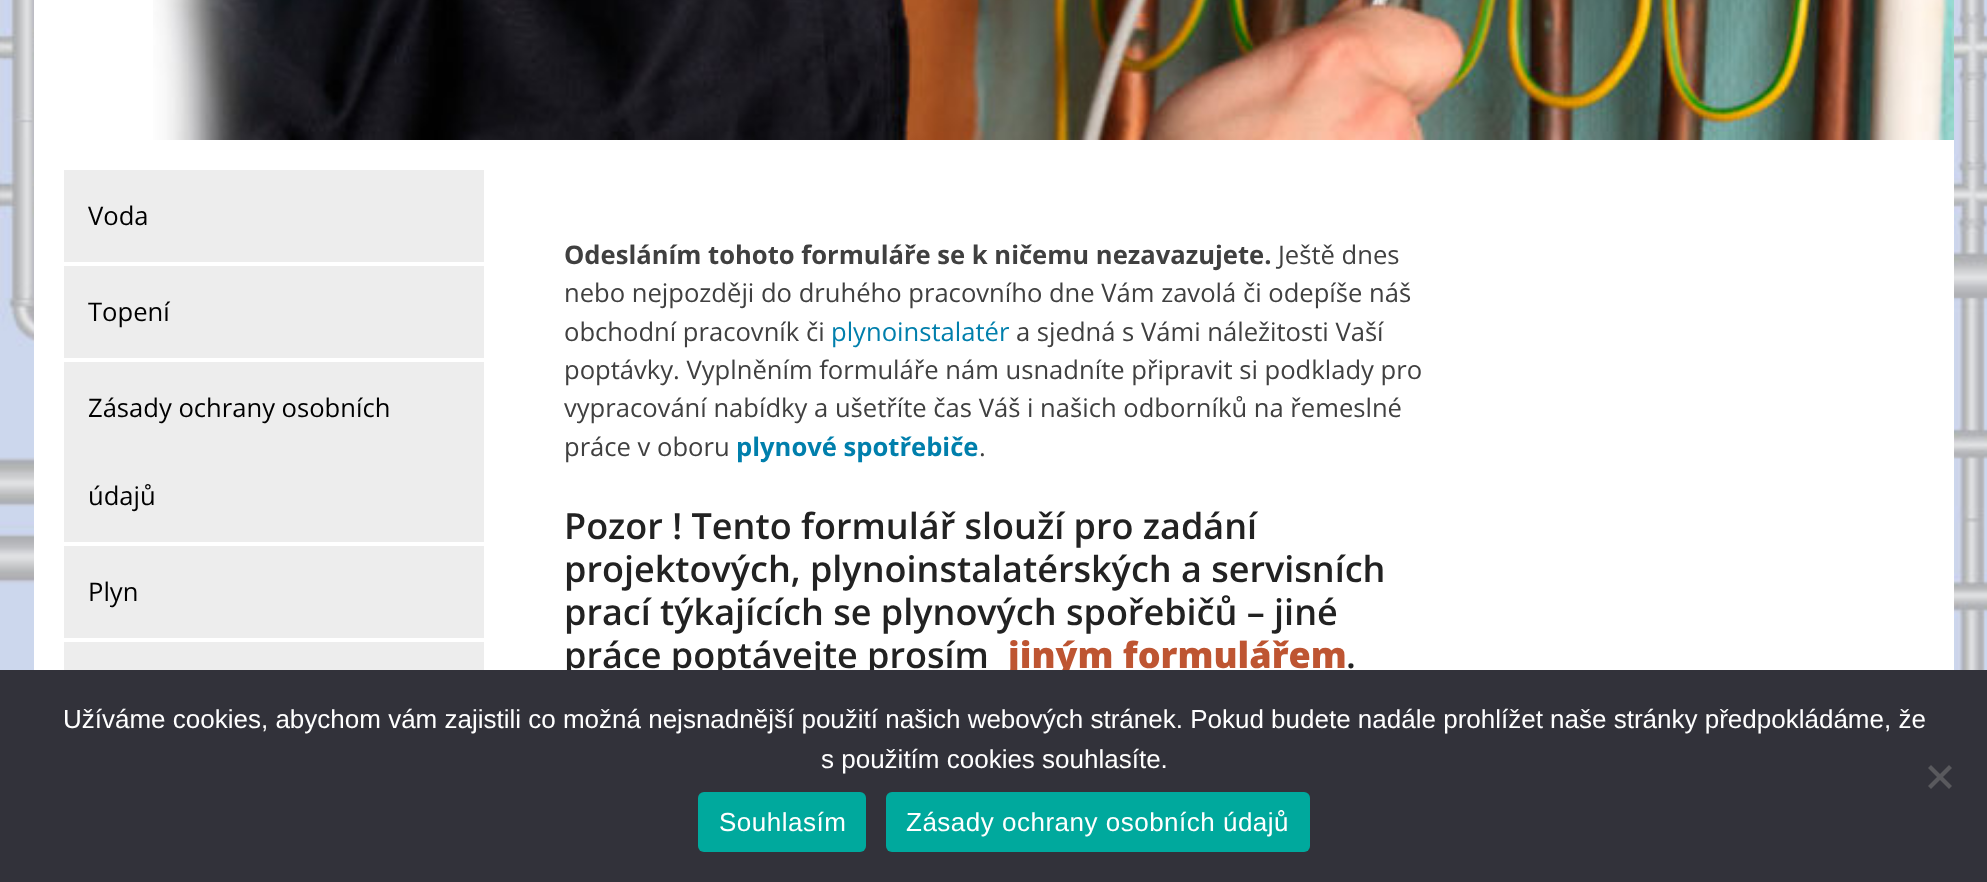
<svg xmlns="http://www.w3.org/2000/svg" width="1987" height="882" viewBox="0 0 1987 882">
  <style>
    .t1 { font: 25.6px Open Sans; fill: #000; }
    .t2 { font: bold 25.6px Open Sans; fill: #404040; }
    .t3 { font: 25.6px Open Sans; fill: #404040; }
    .t4 { font: 25.6px Open Sans; fill: #007fac; }
    .t5 { font: bold 25.6px Open Sans; fill: #007fac; }
    .t6 { font: 600 36px Open Sans; fill: #222; }
    .t7 { font: 800 36px Open Sans; fill: #be5532; }
    .t8 { font: 26px Liberation Sans; fill: #fff; }
    .t9 { font: 26px Liberation Sans; letter-spacing: 0.5px; fill: #fff; }
  </style>
  <rect width="100%" height="100%" fill="#fff"/>
  <image x="0" y="0" width="1987" height="670" href="images/1.png"/>
  <rect x="34" y="0" width="119" height="140" fill="#fff"/>
  <image x="153" y="0" width="1801" height="140" href="images/2.png"/>
  <rect x="34" y="140" width="1920" height="530" fill="#fff"/>
  <rect x="64" y="170" width="420" height="92" fill="#ededed"/>
  <text x="88" y="225" class="t1">Voda</text>
  <rect x="64" y="266" width="420" height="92" fill="#ededed"/>
  <text x="88" y="321" class="t1">Topení</text>
  <rect x="64" y="362" width="420" height="180" fill="#ededed"/>
  <text x="88" y="417" class="t1">Zásady ochrany osobních</text>
  <text x="88" y="505" class="t1">údajů</text>
  <rect x="64" y="546" width="420" height="92" fill="#ededed"/>
  <text x="88" y="601" class="t1">Plyn</text>
  <rect x="64" y="642" width="420" height="28" fill="#ededed"/>
  <text x="564" y="264" class="t2">Odesláním tohoto formuláře se k ničemu nezavazujete.</text>
  <text x="1278" y="264" class="t3">Ještě dnes</text>
  <text x="564" y="302" class="t3">nebo nejpozději do druhého pracovního dne Vám zavolá či odepíše náš</text>
  <text x="564" y="341" class="t3">obchodní pracovník či</text>
  <text x="831" y="341" class="t4">plynoinstalatér</text>
  <text x="1016" y="341" class="t3">a sjedná s Vámi náležitosti Vaší</text>
  <text x="564" y="379" class="t3">poptávky. Vyplněním formuláře nám usnadníte připravit si podklady pro</text>
  <text x="564" y="417" class="t3">vypracování nabídky a ušetříte čas Váš i našich odborníků na řemeslné</text>
  <text x="564" y="456" class="t3">práce v oboru</text>
  <text x="736" y="456" class="t5">plynové spotřebiče</text>
  <text x="979" y="456" class="t3">.</text>
  <text x="564" y="539" class="t6">Pozor ! Tento formulář slouží pro zadání</text>
  <text x="564" y="582" class="t6">projektových, plynoinstalatérských a servisních</text>
  <text x="564" y="625" class="t6">prací týkajících se plynových spořebičů – jiné</text>
  <text x="564" y="668" class="t6">práce poptávejte prosím</text>
  <text x="1008" y="668" class="t7">jiným formulářem</text>
  <text x="1346" y="668" class="t6">.</text>
  <rect x="0" y="670" width="1987" height="212" fill="#32323a"/>
  <text x="63" y="728" class="t8">Užíváme cookies, abychom vám zajistili co možná nejsnadnější použití našich webových stránek. Pokud budete nadále prohlížet naše stránky předpokládáme, že</text>
  <text x="821" y="768" class="t8">s použitím cookies souhlasíte.</text>
  <path d="M1949 765L1952 768L1931 789L1928 786Z" fill="#59595d"/>
  <path d="M1928 768L1931 765L1952 786L1949 789Z" fill="#59595d"/>
  <rect x="698" y="792" width="168" height="60" rx="6" fill="#00a99d"/>
  <text x="719" y="831" class="t9">Souhlasím</text>
  <rect x="886" y="792" width="424" height="60" rx="6" fill="#00a99d"/>
  <text x="906" y="831" class="t9">Zásady ochrany osobních údajů</text>
</svg>
